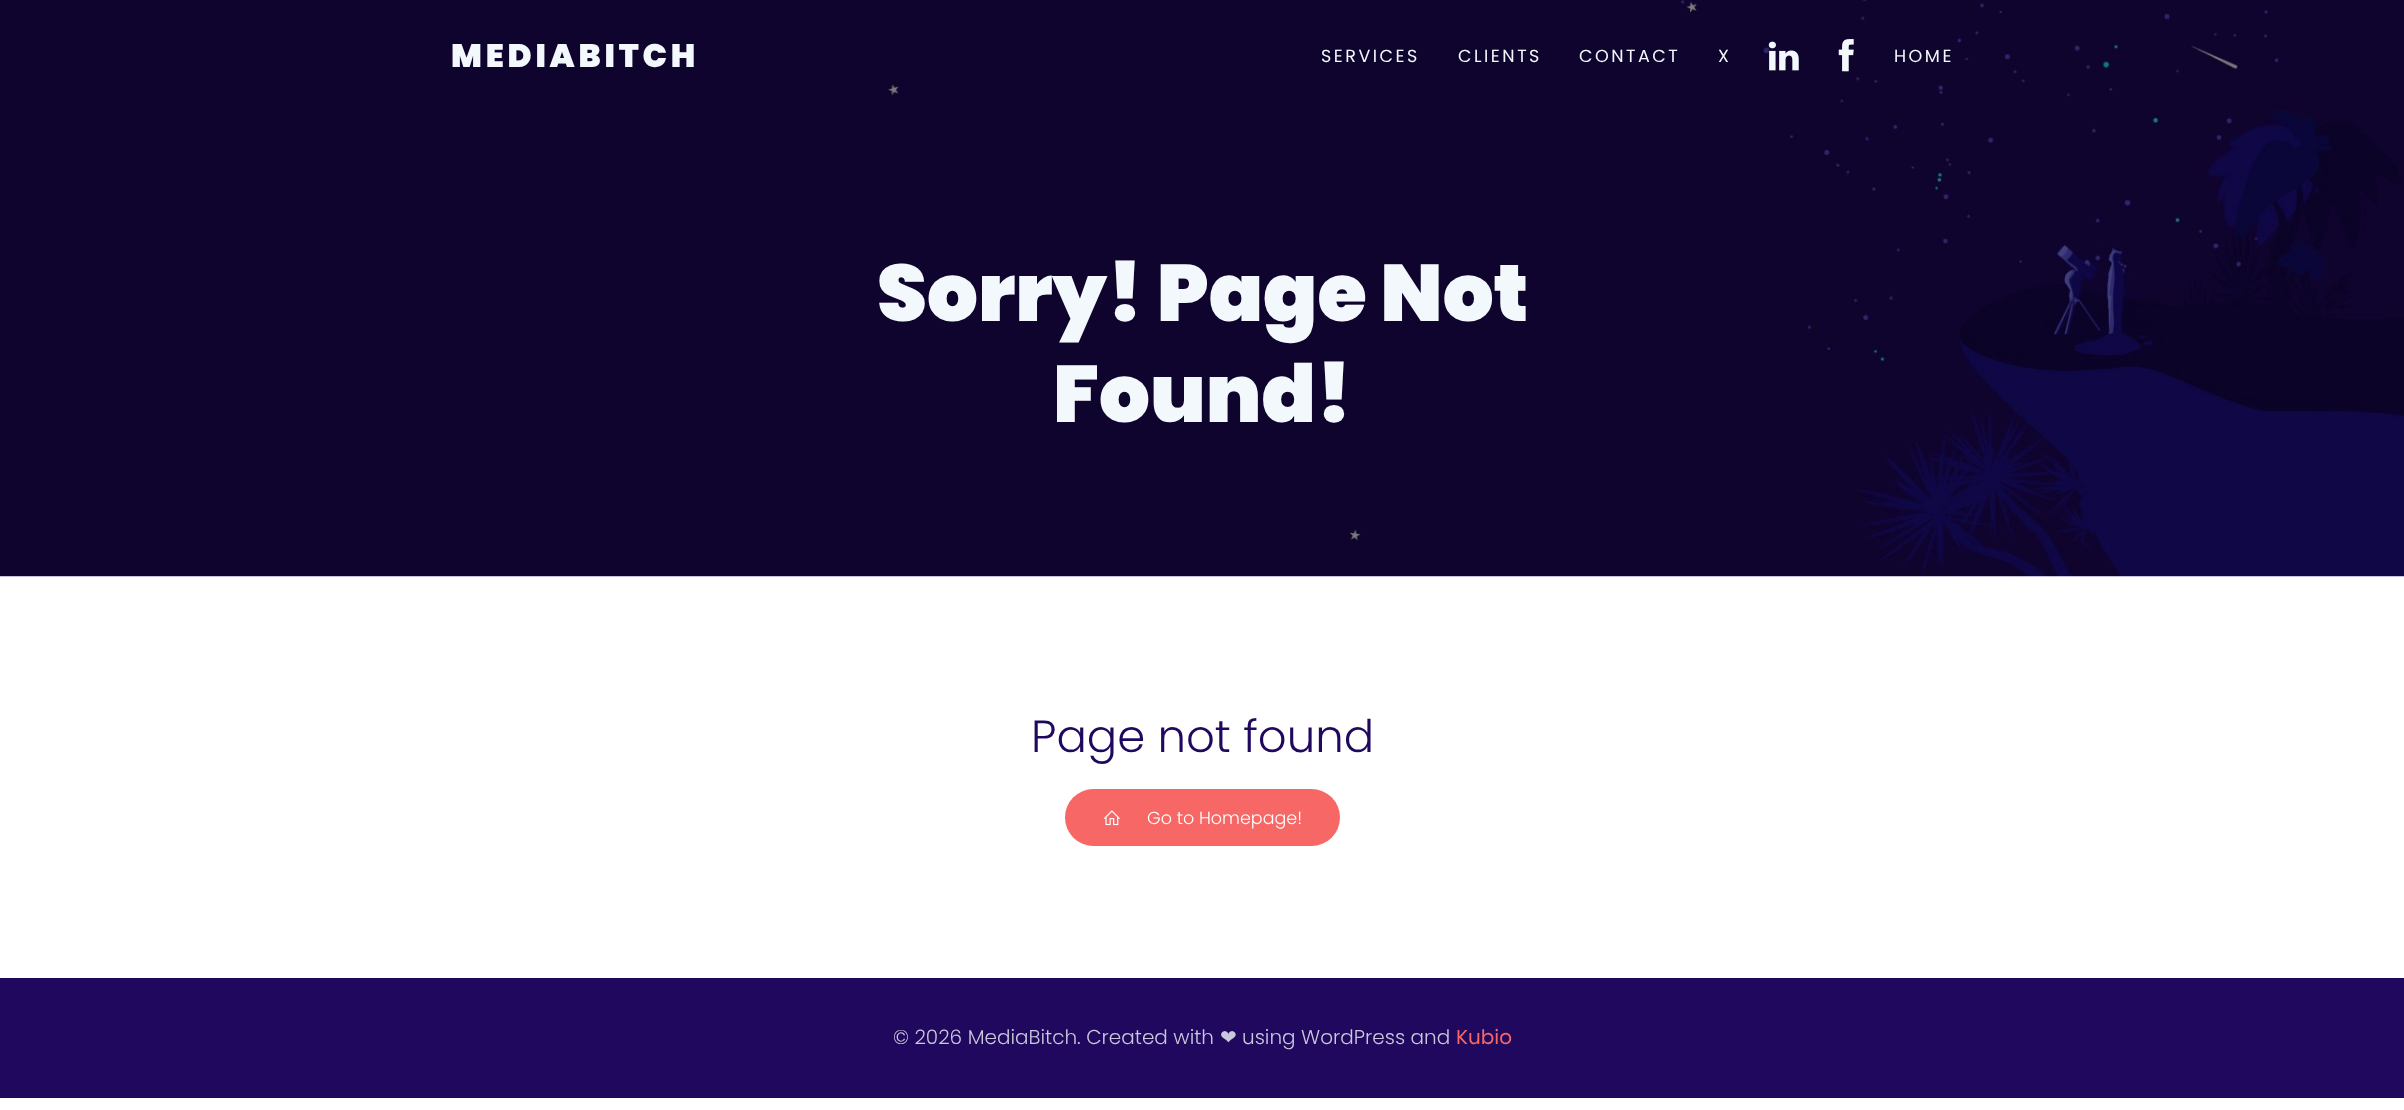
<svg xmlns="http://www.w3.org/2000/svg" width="2404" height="1110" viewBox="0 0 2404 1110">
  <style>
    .t1 { font: 900 32.5px Poppins; letter-spacing: 3.75px; fill: #f3f8fc; }
    .t2 { font: 17.5px Poppins; letter-spacing: 2.5px; fill: #f3f8fc; }
    .t3 { font: 900 80px Poppins; fill: #f3f8fc; }
    .t4 { font: 300 45px Poppins; fill: #20085e; }
    .t5 { font: 300 17.5px Poppins; fill: #fff; }
    .t6 { font: 300 20px Poppins; fill: #c9c8dc; }
    .t7 { font: 20px DejaVu Sans; fill: #c9c8dc; }
    .t8 { font: 20px Poppins; fill: #f66766; }
  </style>
  <rect width="100%" height="100%" fill="#fff"/>
  <image x="0" y="0" width="2404" height="577" href="images/3.png"/>
  <text x="451" y="67" class="t1">MEDIABITCH</text>
  <text x="1321" y="62" class="t2">SERVICES</text>
  <text x="1458" y="62" class="t2">CLIENTS</text>
  <text x="1579" y="62" class="t2">CONTACT</text>
  <text x="1718" y="62" class="t2">X</text>
  <image x="1768" y="41" width="31" height="30" href="images/1.png"/>
  <image x="1838" y="39" width="16" height="33" href="images/2.png"/>
  <text x="1894" y="62" class="t2">HOME</text>
  <text x="877" y="321" class="t3">Sorry! Page Not</text>
  <text x="1053" y="422" class="t3">Found!</text>
  <text x="1031" y="752" class="t4">Page not found</text>
  <rect x="1065" y="789" width="275" height="57" rx="28.5" fill="#f66766"/>
  <image x="1103" y="810" width="17" height="16" href="images/4.png"/>
  <text x="1147" y="824" class="t5">Go to Homepage!</text>
  <rect x="0" y="978" width="2404" height="120" fill="#20085e"/>
  <text x="893" y="1044" class="t6">© 2026 MediaBitch. Created with</text>
  <text x="1220" y="1044" class="t7">❤</text>
  <text x="1242" y="1044" class="t6">using WordPress and</text>
  <text x="1456" y="1044" class="t8">Kubio</text>
</svg>
